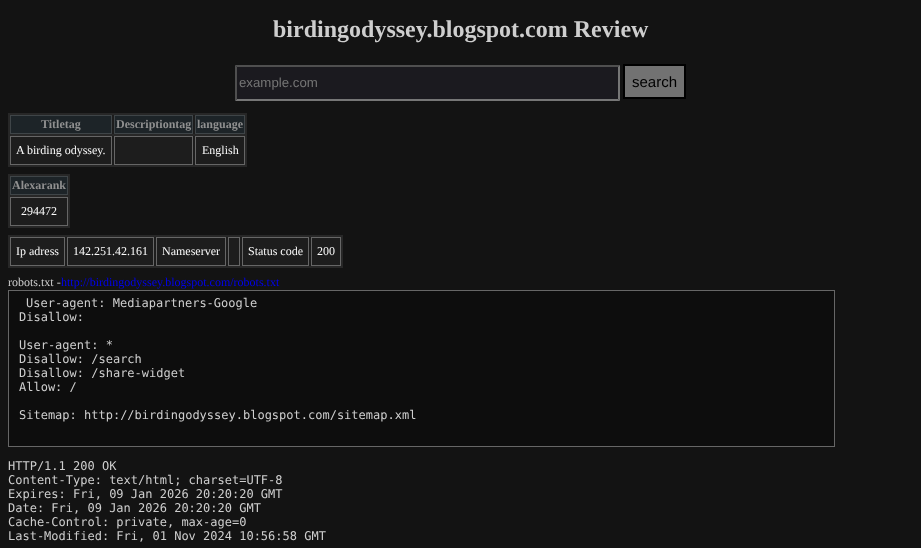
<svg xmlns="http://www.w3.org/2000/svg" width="921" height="548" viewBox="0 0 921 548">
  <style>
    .t1 { font: bold 24px Liberation Serif; fill: #cecece; }
    .t2 { font: 13.25px Liberation Sans; fill: #757575; }
    .t3 { font: 15px Liberation Sans; fill: #000; }
    .t4 { font: bold 12px Liberation Serif; fill: #909090; }
    .t5 { font: 12px Liberation Serif; fill: #fbfbfb; }
    .t6 { font: 12px Liberation Serif; fill: #cecece; }
    .t7 { font: 12px Liberation Serif; fill: #00e; }
    .t8 { font: 12px DejaVu Sans Mono; fill: #cecece; }
  </style>
  <rect width="100%" height="100%" fill="#131313"/>
  <text x="273" y="37" class="t1">birdingodyssey.blogspot.com Review</text>
  <rect x="235" y="65" width="385" height="36" fill="#1b1a1f"/>
  <path d="M235 65H620L618 67H237Z" fill="#4f4f4f"/>
  <path d="M620 65V101L618 99V67Z" fill="#767676"/>
  <path d="M620 101H235L237 99H618Z" fill="#767676"/>
  <path d="M235 101V65L237 67V99Z" fill="#4f4f4f"/>
  <text x="239" y="87" class="t2">example.com</text>
  <rect x="624" y="65" width="61" height="33" fill="#727272" stroke="#000" stroke-width="2"/>
  <text x="632" y="87" class="t3">search</text>
  <rect x="8" y="113" width="239" height="54" fill="#272727"/>
  <rect x="112" y="115" width="83" height="19" fill="#1d1d1d"/>
  <rect x="10.5" y="115.5" width="101" height="18" fill="#1d2428" stroke="#3f4548"/>
  <text x="41" y="128" class="t4">Titletag</text>
  <rect x="114.5" y="115.5" width="78" height="18" fill="#1d2428" stroke="#3f4548"/>
  <text x="116" y="128" class="t4">Descriptiontag</text>
  <rect x="195.5" y="115.5" width="49" height="18" fill="#1d2428" stroke="#3f4548"/>
  <text x="197" y="128" class="t4">language</text>
  <rect x="11" y="136" width="233" height="29" fill="#1d1d1d"/>
  <rect x="10.5" y="136.5" width="101" height="28" fill="none" stroke="#666"/>
  <text x="16" y="154" class="t5">A birding odyssey.</text>
  <rect x="114.5" y="136.5" width="78" height="28" fill="none" stroke="#666"/>
  <rect x="195.5" y="136.5" width="49" height="28" fill="none" stroke="#666"/>
  <text x="202" y="154" class="t5">English</text>
  <rect x="8" y="174" width="62" height="54" fill="#272727"/>
  <rect x="10.5" y="176.5" width="57" height="18" fill="#1d2428" stroke="#3f4548"/>
  <text x="12" y="189" class="t4">Alexarank</text>
  <rect x="10.5" y="197.5" width="57" height="28" fill="#1d1d1d" stroke="#666"/>
  <text x="21" y="215" class="t5">294472</text>
  <rect x="8" y="235" width="335" height="33" fill="#272727"/>
  <rect x="11" y="237" width="329" height="29" fill="#1d1d1d"/>
  <rect x="10.5" y="237.5" width="54" height="28" fill="none" stroke="#666"/>
  <text x="16" y="255" class="t5">Ip adress</text>
  <rect x="67.5" y="237.5" width="86" height="28" fill="none" stroke="#666"/>
  <text x="73" y="255" class="t5">142.251.42.161</text>
  <rect x="156.5" y="237.5" width="69" height="28" fill="none" stroke="#666"/>
  <text x="162" y="255" class="t5">Nameserver</text>
  <rect x="228.5" y="237.5" width="11" height="28" fill="none" stroke="#666"/>
  <rect x="242.5" y="237.5" width="66" height="28" fill="none" stroke="#666"/>
  <text x="248" y="255" class="t5">Status code</text>
  <rect x="311.5" y="237.5" width="29" height="28" fill="none" stroke="#666"/>
  <text x="317" y="255" class="t5">200</text>
  <text x="8" y="286" class="t6">robots.txt -</text>
  <text x="61" y="286" class="t7">http://birdingodyssey.blogspot.com/robots.txt</text>
  <rect x="8.5" y="290.5" width="826" height="156" fill="#0d0d0d" stroke="#666"/>
  <text x="26" y="307" class="t8">User-agent: Mediapartners-Google</text>
  <text x="19" y="321" class="t8">Disallow:</text>
  <text x="19" y="349" class="t8">User-agent: *</text>
  <text x="19" y="363" class="t8">Disallow: /search</text>
  <text x="19" y="377" class="t8">Disallow: /share-widget</text>
  <text x="19" y="391" class="t8">Allow: /</text>
  <text x="19" y="419" class="t8">Sitemap: http://birdingodyssey.blogspot.com/sitemap.xml</text>
  <text x="8" y="470" class="t8">HTTP/1.1 200 OK</text>
  <text x="8" y="484" class="t8">Content-Type: text/html; charset=UTF-8</text>
  <text x="8" y="498" class="t8">Expires: Fri, 09 Jan 2026 20:20:20 GMT</text>
  <text x="8" y="512" class="t8">Date: Fri, 09 Jan 2026 20:20:20 GMT</text>
  <text x="8" y="526" class="t8">Cache-Control: private, max-age=0</text>
  <text x="8" y="540" class="t8">Last-Modified: Fri, 01 Nov 2024 10:56:58 GMT</text>
</svg>
